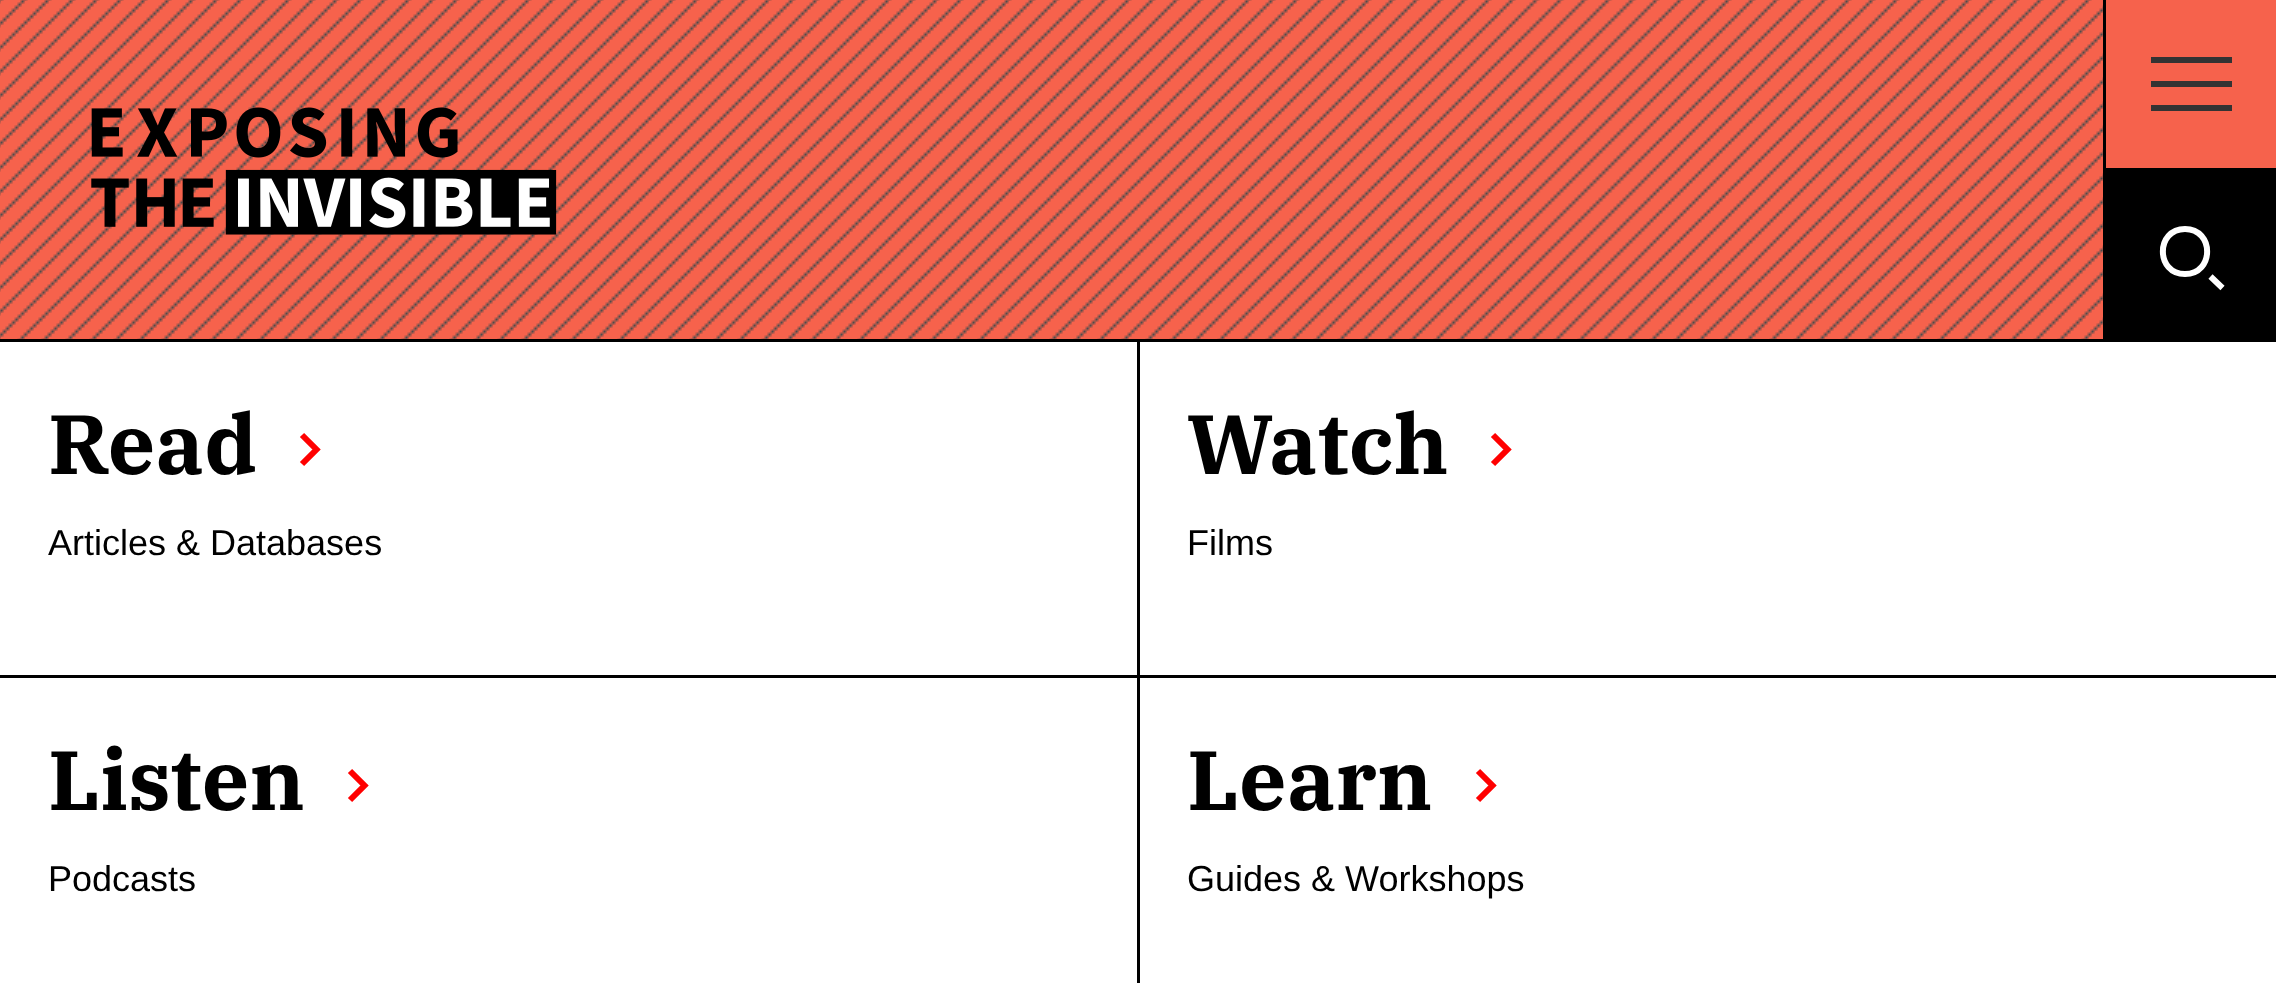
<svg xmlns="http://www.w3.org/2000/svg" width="2276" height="983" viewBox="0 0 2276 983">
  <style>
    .t1 { font: bold 84px IBM Plex Serif; fill: #000; }
    .t2 { font: 36px Liberation Sans; fill: #000; }
  </style>
  <rect width="100%" height="100%" fill="#f6624c"/>
  <image x="0" y="0" width="2103" height="339" href="images/1.png"/>
  <rect x="0" y="339" width="2103" height="3" fill="#000"/>
  <image x="91" y="107" width="466" height="128" href="images/2.png"/>
  <rect x="2103" y="0" width="3" height="342" fill="#000"/>
  <path d="M2232 57H2151V63H2232ZM2232 81H2151V87H2232ZM2232 105H2151V111H2232Z" fill="#333"/>
  <rect x="2106" y="168" width="170" height="174" fill="#000"/>
  <path d="M2185 274C2214.5 274 2214.5 229 2185 229C2155.5 229 2155.5 274 2185 274ZM2210.5 276.5L2222.5 288" fill="none" stroke="#fff" stroke-width="6"/>
  <rect x="0" y="342" width="1137" height="333" fill="#fff"/>
  <rect x="1137" y="342" width="3" height="641" fill="#000"/>
  <rect x="0" y="675" width="2276" height="3" fill="#000"/>
  <text x="48" y="474" class="t1">Read</text>
  <path d="M302 435L316.5 449.5L302 464" fill="none" stroke="#f00" stroke-width="6"/>
  <text x="48" y="555" class="t2">Articles &amp; Databases</text>
  <rect x="1140" y="342" width="1136" height="333" fill="#fff"/>
  <text x="1187" y="474" class="t1">Watch</text>
  <path d="M1493 435L1507.5 449.5L1493 464" fill="none" stroke="#f00" stroke-width="6"/>
  <text x="1187" y="555" class="t2">Films</text>
  <rect x="0" y="678" width="1137" height="305" fill="#fff"/>
  <text x="48" y="810" class="t1">Listen</text>
  <path d="M350 771L364.5 785.5L350 800" fill="none" stroke="#f00" stroke-width="6"/>
  <text x="48" y="891" class="t2">Podcasts</text>
  <rect x="1140" y="678" width="1136" height="305" fill="#fff"/>
  <text x="1187" y="810" class="t1">Learn</text>
  <path d="M1478 771L1492.5 785.5L1478 800" fill="none" stroke="#f00" stroke-width="6"/>
  <text x="1187" y="891" class="t2">Guides &amp; Workshops</text>
</svg>
